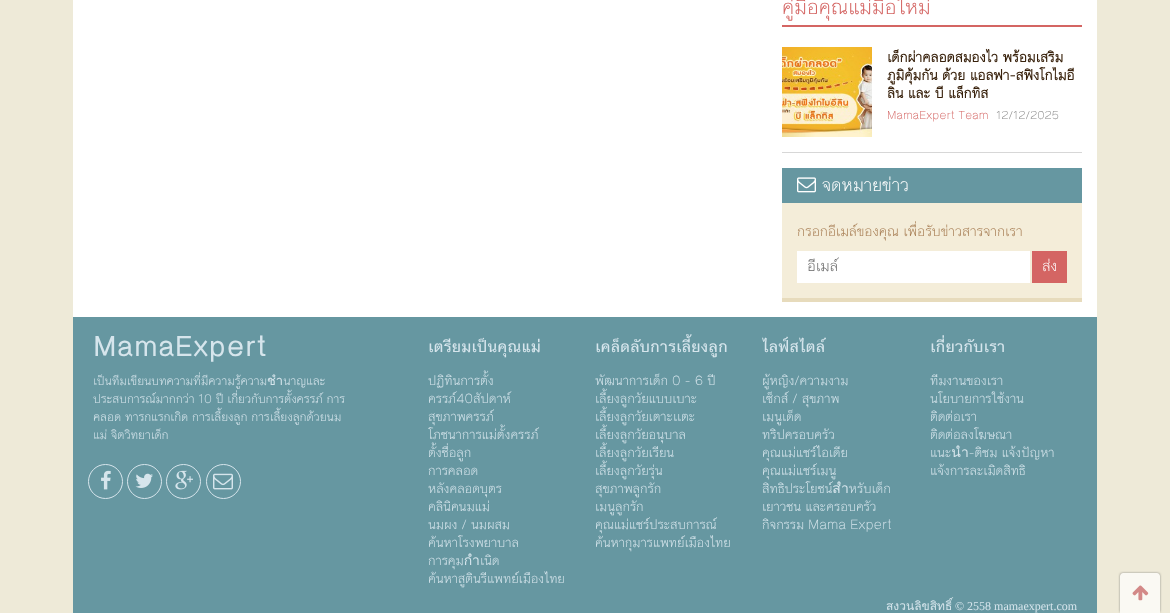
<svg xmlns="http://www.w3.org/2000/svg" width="1170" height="613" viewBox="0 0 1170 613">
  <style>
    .t1 { font: 22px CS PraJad; fill: #d46563; }
    .t2 { font: bold 15px CS PraJad; fill: #38210b; }
    .t3 { font: 12px CS PraJad; fill: #d46563; }
    .t4 { font: 12px CS PraJad; fill: #898989; }
    .t5 { font: 19px CS PraJad; fill: #fff; }
    .t6 { font: 15px CS PraJad; fill: #a67c52; }
    .t7 { font: 16px CS PraJad; fill: #666; }
    .t8 { font: 16px CS PraJad; fill: #fff; }
    .t9 { font: bold 30px 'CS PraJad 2'; fill: #d6e5ec; }
    .t10 { font: 13px CS PraJad; fill: #d6e5ec; }
    .t11 { font: bold 17px 'CS PraJad 2'; fill: #d6e5ec; }
    .t12 { font: 14px CS PraJad; fill: #d6e5ec; }
    .t13 { font: 12px Loma; fill: #d6e5ec; }
    .t14 { font: 12px Liberation Serif; fill: #d6e5ec; }
  </style>
  <defs>
    <clipPath id="clip1"><rect x="887" y="47" width="195" height="54"/></clipPath>
    <clipPath id="clip2"><rect x="807" y="254" width="213" height="25"/></clipPath>
  </defs>
  <rect width="100%" height="100%" fill="#eeead8"/>
  <rect x="73" y="0" width="1024" height="317" fill="#fff"/>
  <rect x="782" y="25" width="300" height="2" fill="#d46563"/>
  <text x="782" y="14" class="t1">คู่มือคุณแม่มือใหม่</text>
  <rect x="782" y="152" width="300" height="1" fill="#d7d7d7"/>
  <image x="782" y="47" width="90" height="90" href="images/1.png"/>
  <g clip-path="url(#clip1)">
    <text x="887" y="62" class="t2">เด็กผ่าคลอดสมองไว พร้อมเสริม</text>
    <text x="887" y="80" class="t2">ภูมิคุ้มกัน ด้วย แอลฟา-สฟิงโกไมอี</text>
    <text x="887" y="98" class="t2">ลิน และ บี แล็กทิส</text>
  </g>
  <text x="887" y="119" class="t3">MamaExpert Team</text>
  <text x="996" y="119" class="t4">12/12/2025</text>
  <rect x="782" y="168" width="300" height="35" fill="#6697a1"/>
  <image x="797" y="177" width="19" height="16" href="images/2.png"/>
  <text x="822" y="191" class="t5">จดหมายข่าว</text>
  <rect x="782" y="203" width="300" height="95" fill="#f4edd9"/>
  <rect x="782" y="298" width="300" height="4" fill="#e7dbbc"/>
  <text x="797" y="236" class="t6">กรอกอีเมล์ของคุณ เพื่อรับข่าวสารจากเรา</text>
  <rect x="797" y="251" width="233" height="32" fill="#fff"/>
  <g clip-path="url(#clip2)">
    <text x="807" y="271" class="t7">อีเมล์</text>
  </g>
  <rect x="1032" y="251" width="35" height="32" fill="#d46563"/>
  <text x="1042" y="271" class="t8">ส่ง</text>
  <rect x="73" y="317" width="1024" height="296" fill="#6697a1"/>
  <text x="93" y="356" class="t9">MamaExpert</text>
  <text x="93" y="385" class="t10">เป็นทีมเขียนบทความที่มีความรู้ความชำนาญและ</text>
  <text x="93" y="403" class="t10">ประสบการณ์มากกว่า 10 ปี เกี่ยวกับการตั้งครรภ์ การ</text>
  <text x="93" y="421" class="t10">คลอด ทารกแรกเกิด การเลี้ยงลูก การเลี้ยงลูกด้วยนม</text>
  <text x="93" y="439" class="t10">แม่ จิตวิทยาเด็ก</text>
  <circle cx="105.5" cy="481.5" r="17" fill="none" stroke="#d6e5ec"/>
  <image x="101" y="470" width="10" height="20" href="images/3.png"/>
  <circle cx="144.5" cy="481.5" r="17" fill="none" stroke="#d6e5ec"/>
  <image x="135" y="473" width="18" height="15" href="images/4.png"/>
  <circle cx="183.5" cy="481.5" r="17" fill="none" stroke="#d6e5ec"/>
  <image x="175" y="470" width="18" height="20" href="images/5.png"/>
  <circle cx="223.5" cy="481.5" r="17" fill="none" stroke="#d6e5ec"/>
  <image x="213" y="473" width="20" height="17" href="images/6.png"/>
  <text x="428" y="352" class="t11">เตรียมเป็นคุณแม่</text>
  <text x="428" y="385" class="t12">ปฏิทินการตั้ง</text>
  <text x="428" y="403" class="t12">ครรภ์40สัปดาห์</text>
  <text x="428" y="421" class="t12">สุขภาพครรภ์</text>
  <text x="428" y="439" class="t12">โภชนาการแม่ตั้งครรภ์</text>
  <text x="428" y="457" class="t12">ตั้งชื่อลูก</text>
  <text x="428" y="475" class="t12">การคลอด</text>
  <text x="428" y="493" class="t12">หลังคลอดบุตร</text>
  <text x="428" y="511" class="t12">คลินิคนมแม่</text>
  <text x="428" y="529" class="t12">นมผง / นมผสม</text>
  <text x="428" y="547" class="t12">ค้นหาโรงพยาบาล</text>
  <text x="428" y="565" class="t12">การคุมกำเนิด</text>
  <text x="428" y="583" class="t12">ค้นหาสูตินรีแพทย์เมืองไทย</text>
  <text x="595" y="352" class="t11">เคล็ดลับการเลี้ยงลูก</text>
  <text x="595" y="385" class="t12">พัฒนาการเด็ก 0 - 6 ปี</text>
  <text x="595" y="403" class="t12">เลี้ยงลูกวัยแบบเบาะ</text>
  <text x="595" y="421" class="t12">เลี้ยงลูกวัยเตาะเเตะ</text>
  <text x="595" y="439" class="t12">เลี้ยงลูกวัยอนุบาล</text>
  <text x="595" y="457" class="t12">เลี้ยงลูกวัยเรียน</text>
  <text x="595" y="475" class="t12">เลี้ยงลูกวัยรุ่น</text>
  <text x="595" y="493" class="t12">สุขภาพลูกรัก</text>
  <text x="595" y="511" class="t12">เมนูลูกรัก</text>
  <text x="595" y="529" class="t12">คุณแม่แชร์ประสบการณ์</text>
  <text x="595" y="547" class="t12">ค้นหากุมารแพทย์เมืองไทย</text>
  <text x="762" y="352" class="t11">ไลฟ์สไตล์</text>
  <text x="762" y="385" class="t12">ผู้หญิง/ความงาม</text>
  <text x="762" y="403" class="t12">เซ็กส์ / สุขภาพ</text>
  <text x="762" y="421" class="t12">เมนูเด็ด</text>
  <text x="762" y="439" class="t12">ทริปครอบครัว</text>
  <text x="762" y="457" class="t12">คุณแม่แชร์ไอเดีย</text>
  <text x="762" y="475" class="t12">คุณแม่แชร์เมนู</text>
  <text x="762" y="493" class="t12">สิทธิประโยชน์สำหรับเด็ก</text>
  <text x="762" y="511" class="t12">เยาวชน และครอบครัว</text>
  <text x="762" y="529" class="t12">กิจกรรม Mama Expert</text>
  <text x="930" y="352" class="t11">เกี่ยวกับเรา</text>
  <text x="930" y="385" class="t12">ทีมงานของเรา</text>
  <text x="930" y="403" class="t12">นโยบายการใช้งาน</text>
  <text x="930" y="421" class="t12">ติดต่อเรา</text>
  <text x="930" y="439" class="t12">ติดต่อลงโฆษณา</text>
  <text x="930" y="457" class="t12">แนะนำ-ติชม แจ้งปัญหา</text>
  <text x="930" y="475" class="t12">แจ้งการละเมิดสิทธิ</text>
  <rect x="1120" y="573" width="40" height="40" rx="3" fill="#8d8c86" filter="blur(1px)"/>
  <path d="M1123 573H1157C1158.5 573 1160 574.5 1160 576V613H1120V576C1120 574.5 1121.5 573 1123 573Z" fill="#faf9f3"/>
  <image x="1132" y="585" width="17" height="16" href="images/7.png"/>
  <text x="886" y="610" class="t13">สงวนลิขสิทธิ์</text>
  <text x="955" y="610" class="t14">© 2558 mamaexpert.com</text>
</svg>
